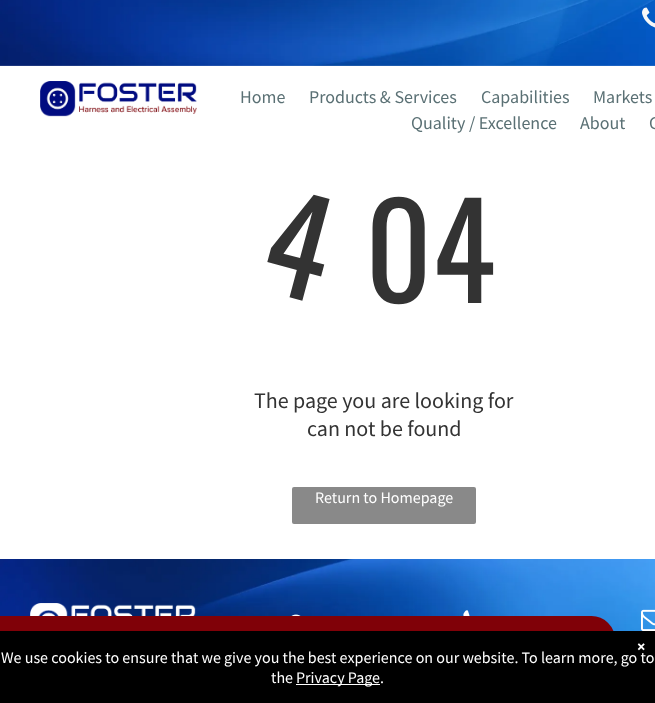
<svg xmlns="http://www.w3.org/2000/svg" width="655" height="703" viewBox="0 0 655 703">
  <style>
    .t1 { font: 18px Source Sans Pro; fill: #5a7074; }
    .t2 { font: 130px Oswald; fill: #333; }
    .t3 { font: 22px Source Sans Pro; fill: #333; }
    .t4 { font: 16px Source Sans Pro; fill: #fff; }
    .t5 { font: bold 16px Source Sans Pro; fill: #fff; }
  </style>
  <rect width="100%" height="100%" fill="#fff"/>
  <image x="0" y="0" width="655" height="66" href="images/1.png"/>
  <image x="642" y="7" width="13" height="21" href="images/2.png"/>
  <image x="40" y="81" width="157" height="36" href="images/3.png"/>
  <text x="240" y="103" class="t1">Home</text>
  <text x="309" y="103" class="t1">Products &amp; Services</text>
  <text x="481" y="103" class="t1">Capabilities</text>
  <text x="593" y="103" class="t1">Markets</text>
  <text x="411" y="129" class="t1">Quality / Excellence</text>
  <text x="580" y="129" class="t1">About</text>
  <text x="649" y="129" class="t1">C</text>
  <text x="255" y="288" transform="rotate(15 255 288)" class="t2">4</text>
  <text x="365" y="303" class="t2">04</text>
  <text x="254" y="408" class="t3">The page you are looking for</text>
  <text x="307" y="436" class="t3">can not be found</text>
  <rect x="292" y="487" width="184" height="37" rx="2" fill="#898989"/>
  <text x="315" y="503" class="t4">Return to Homepage</text>
  <image x="0" y="559" width="655" height="72" href="images/4.png"/>
  <image x="30" y="603" width="166" height="13" href="images/5.png"/>
  <image x="291" y="614" width="10" height="2" href="images/6.png"/>
  <image x="463" y="610" width="7" height="6" href="images/7.png"/>
  <image x="641" y="609" width="14" height="22" href="images/8.png"/>
  <rect x="-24" y="616" width="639" height="47" rx="23.5" fill="#800108"/>
  <rect x="0" y="631" width="655" height="72" fill="#000"/>
  <text x="637" y="652" class="t5">×</text>
  <text x="1" y="663" class="t4">We use cookies to ensure that we give you the best experience on our website. To learn more, go to</text>
  <text x="271" y="683" class="t4">the</text>
  <rect x="296" y="684" width="84" height="1" fill="#fff"/>
  <text x="296" y="683" class="t4">Privacy Page.</text>
</svg>
